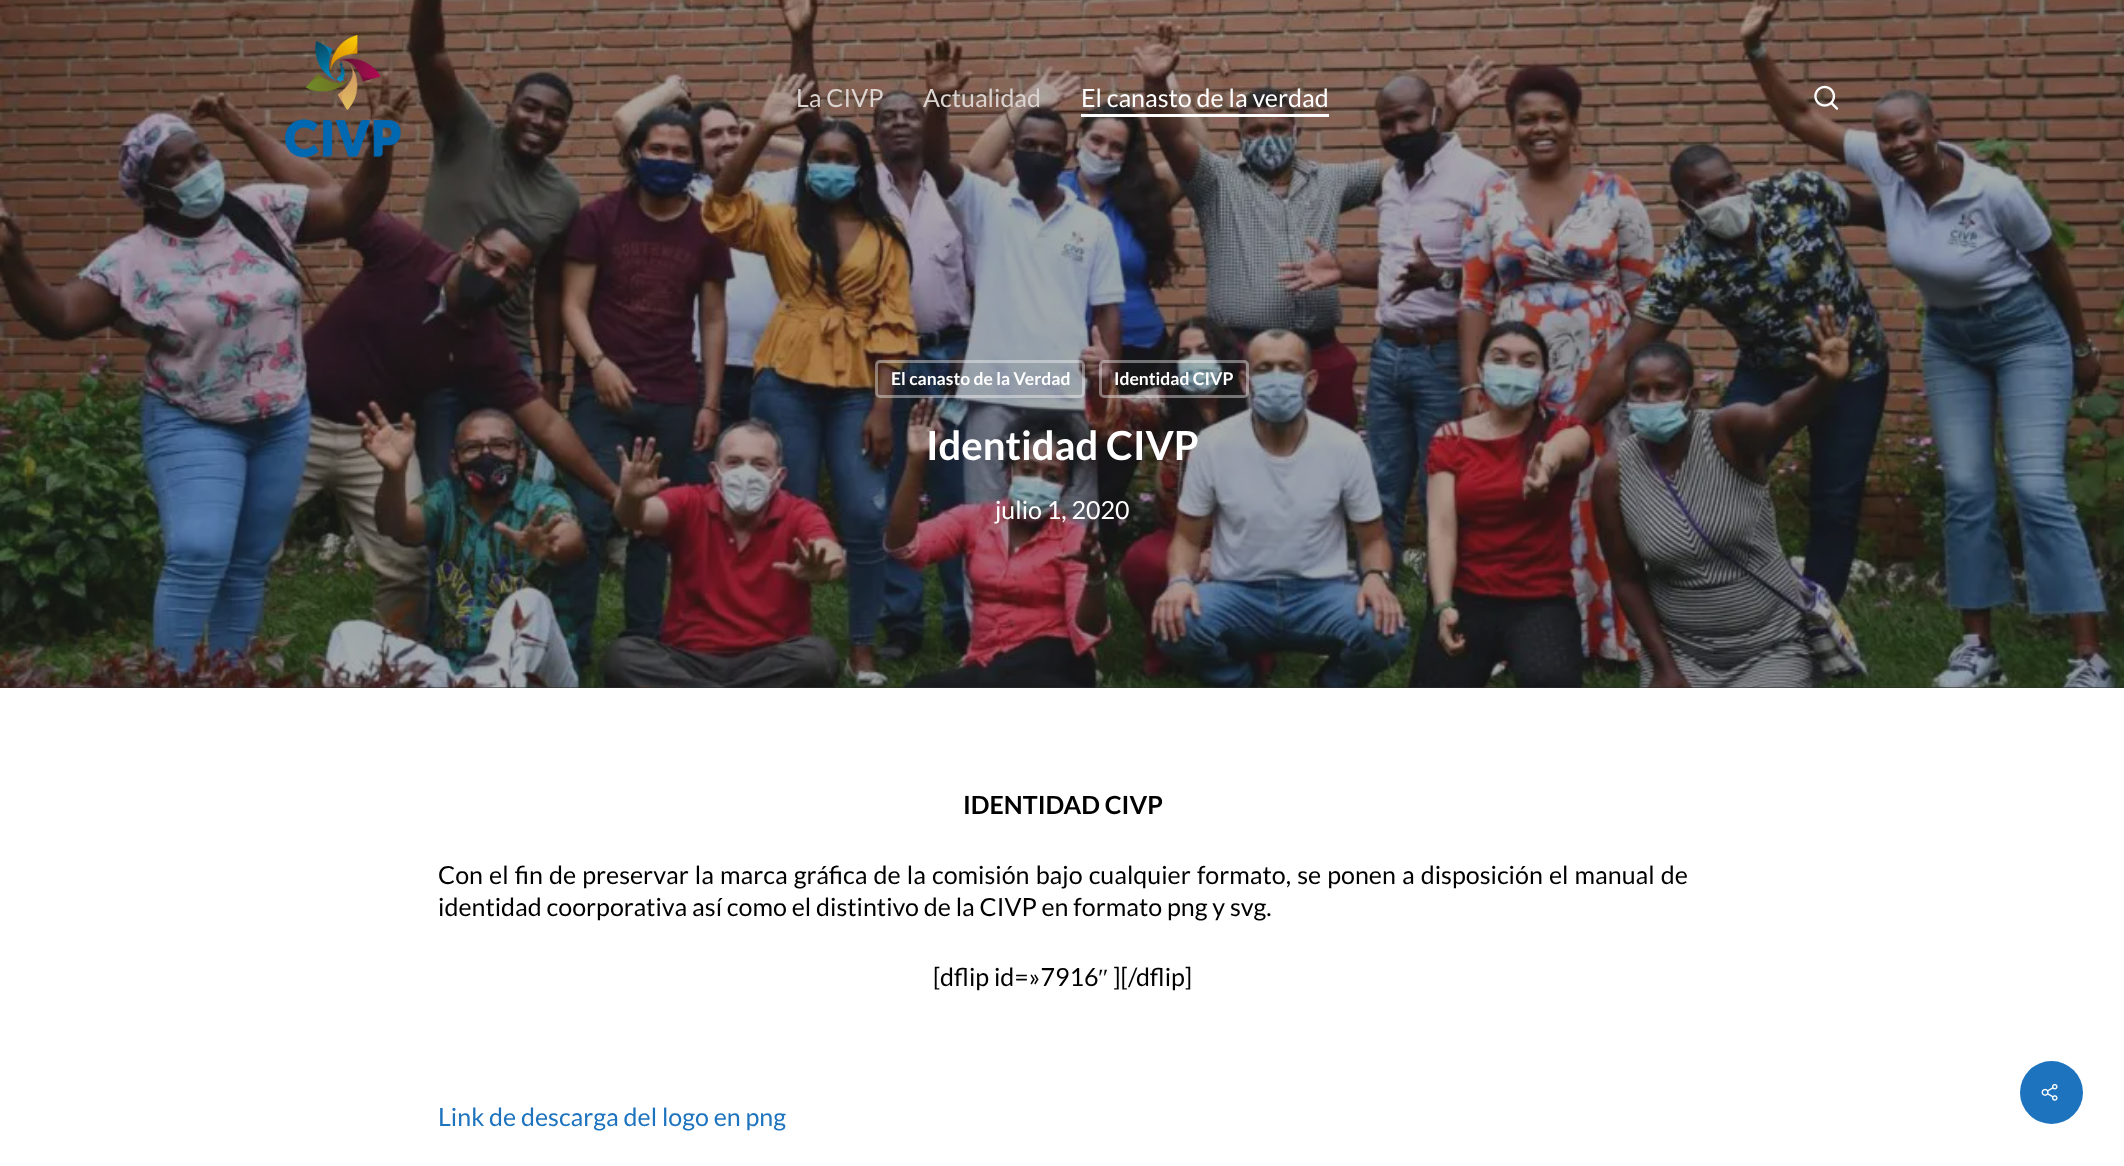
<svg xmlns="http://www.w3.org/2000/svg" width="2124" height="1166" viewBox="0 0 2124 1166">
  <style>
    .t1 { font: 25px Lato; fill: #dad3d0; }
    .t2 { font: 25px Lato; fill: #fff; }
    .t3 { font: bold 17.5px Lato; fill: #fff; }
    .t4 { font: bold 40px Lato; fill: #fff; }
    .t5 { font: bold 25px Lato; fill: #000; }
    .t6 { font: 25px Lato; fill: #000; }
    .t7 { font: 25px Liberation Serif; fill: #000; }
    .t8 { font: 25px Lato; fill: #1e73be; }
  </style>
  <rect width="100%" height="100%" fill="#fff"/>
  <rect x="0" y="687" width="2124" height="1" fill="#2d2d2d"/>
  <image x="0" y="0" width="2124" height="688" href="images/3.png"/>
  <image x="285" y="35" width="117" height="123" href="images/1.png"/>
  <text x="796" y="107" class="t1">La CIVP</text>
  <text x="923" y="107" class="t1">Actualidad</text>
  <text x="1081" y="107" class="t2">El canasto de la verdad</text>
  <rect x="1081" y="114" width="248" height="3" fill="#fff"/>
  <image x="1814" y="85" width="25" height="25" href="images/2.png"/>
  <rect x="876.5" y="361.5" width="207" height="35" rx="3.5" fill="none" stroke="#ffffff66" stroke-width="3"/>
  <text x="891" y="385" class="t3">El canasto de la Verdad</text>
  <rect x="1100.5" y="361.5" width="147" height="35" rx="3.5" fill="none" stroke="#ffffff66" stroke-width="3"/>
  <text x="1114" y="385" class="t3">Identidad CIVP</text>
  <text x="926" y="460" class="t4">Identidad CIVP</text>
  <text x="995" y="519" class="t2">julio 1, 2020</text>
  <text x="963" y="814" class="t5">IDENTIDAD CIVP</text>
  <text x="438" y="884" word-spacing="1.3" class="t6">Con el fin de preservar la marca gráfica de la comisión bajo cualquier formato, se ponen a disposición el manual de</text>
  <text x="438" y="916" class="t6">identidad coorporativa así como el distintivo de la CIVP en formato png y svg.</text>
  <text x="933" y="986" class="t6">[dflip id=»7916</text>
  <text x="1098" y="986" class="t7">″</text>
  <text x="1113" y="986" class="t6">][/dflip]</text>
  <text x="438" y="1126" class="t8">Link de descarga del logo en png</text>
  <circle cx="2051.5" cy="1092.5" r="31.5" fill="#1e73be"/>
  <image x="2041" y="1084" width="17" height="17" href="images/4.png"/>
</svg>
